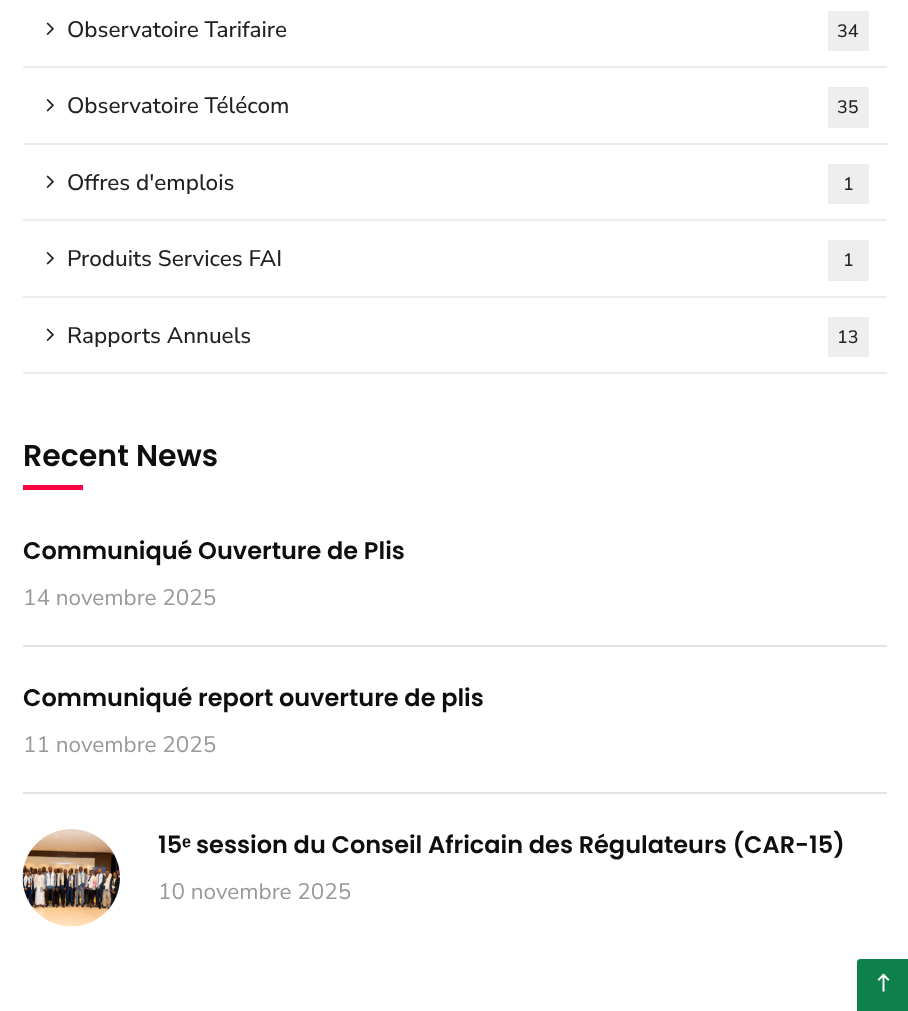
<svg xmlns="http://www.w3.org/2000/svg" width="908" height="1011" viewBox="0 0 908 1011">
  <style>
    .t1 { font: 500 22.5px Nunito Sans; fill: #222; }
    .t2 { font: 500 18px Nunito Sans; fill: #222; }
    .t3 { font: 600 30px Poppins; fill: #0e0e0e; }
    .t4 { font: 600 24px Poppins; fill: #0e0e0e; }
    .t5 { font: 22.5px Nunito Sans; fill: #999; }
    .t6 { font: bold 24px Liberation Sans; fill: #0e0e0e; }
  </style>
  <rect width="100%" height="100%" fill="#fff"/>
  <rect x="23" y="66" width="864" height="2" fill="#ececf0"/>
  <image x="46" y="22" width="8" height="13" href="images/1.png"/>
  <text x="67" y="37" class="t1">Observatoire Tarifaire</text>
  <rect x="828" y="11" width="41" height="40" fill="#eee"/>
  <text x="837" y="37" class="t2">34</text>
  <rect x="23" y="143" width="864" height="2" fill="#ececf0"/>
  <image x="46" y="99" width="8" height="13" href="images/2.png"/>
  <text x="67" y="113" class="t1">Observatoire Télécom</text>
  <rect x="828" y="87" width="41" height="41" fill="#eee"/>
  <text x="837" y="113" class="t2">35</text>
  <rect x="23" y="219" width="864" height="2" fill="#ececf0"/>
  <image x="46" y="175" width="8" height="13" href="images/1.png"/>
  <text x="67" y="190" class="t1">Offres d'emplois</text>
  <rect x="828" y="164" width="41" height="40" fill="#eee"/>
  <text x="843" y="190" class="t2">1</text>
  <rect x="23" y="296" width="864" height="2" fill="#ececf0"/>
  <image x="46" y="252" width="8" height="13" href="images/2.png"/>
  <text x="67" y="266" class="t1">Produits Services FAI</text>
  <rect x="828" y="240" width="41" height="41" fill="#eee"/>
  <text x="843" y="266" class="t2">1</text>
  <rect x="23" y="372" width="864" height="2" fill="#ececf0"/>
  <image x="46" y="328" width="8" height="13" href="images/1.png"/>
  <text x="67" y="343" class="t1">Rapports Annuels</text>
  <rect x="828" y="317" width="41" height="40" fill="#eee"/>
  <text x="837" y="343" class="t2">13</text>
  <text x="23" y="466" class="t3">Recent News</text>
  <rect x="23" y="485" width="60" height="5" fill="#ff0040"/>
  <rect x="23" y="645" width="864" height="2" fill="#e2e2e7"/>
  <text x="23" y="559" class="t4">Communiqué Ouverture de Plis</text>
  <text x="23" y="605" class="t5">14 novembre 2025</text>
  <rect x="23" y="792" width="864" height="2" fill="#e2e2e7"/>
  <text x="23" y="706" class="t4">Communiqué report ouverture de plis</text>
  <text x="23" y="752" class="t5">11 novembre 2025</text>
  <image x="22" y="829" width="98" height="98" href="images/3.png"/>
  <text x="158" y="853" class="t4">15</text>
  <text x="182" y="853" class="t6">ᵉ</text>
  <text x="196" y="853" class="t4">session du Conseil Africain des Régulateurs (CAR-15)</text>
  <text x="158" y="899" class="t5">10 novembre 2025</text>
  <path d="M860 959H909V1011H857V962C857 960.5 858.5 959 860 959Z" fill="#0d804c"/>
  <image x="877" y="973" width="13" height="19" href="images/4.png"/>
</svg>
